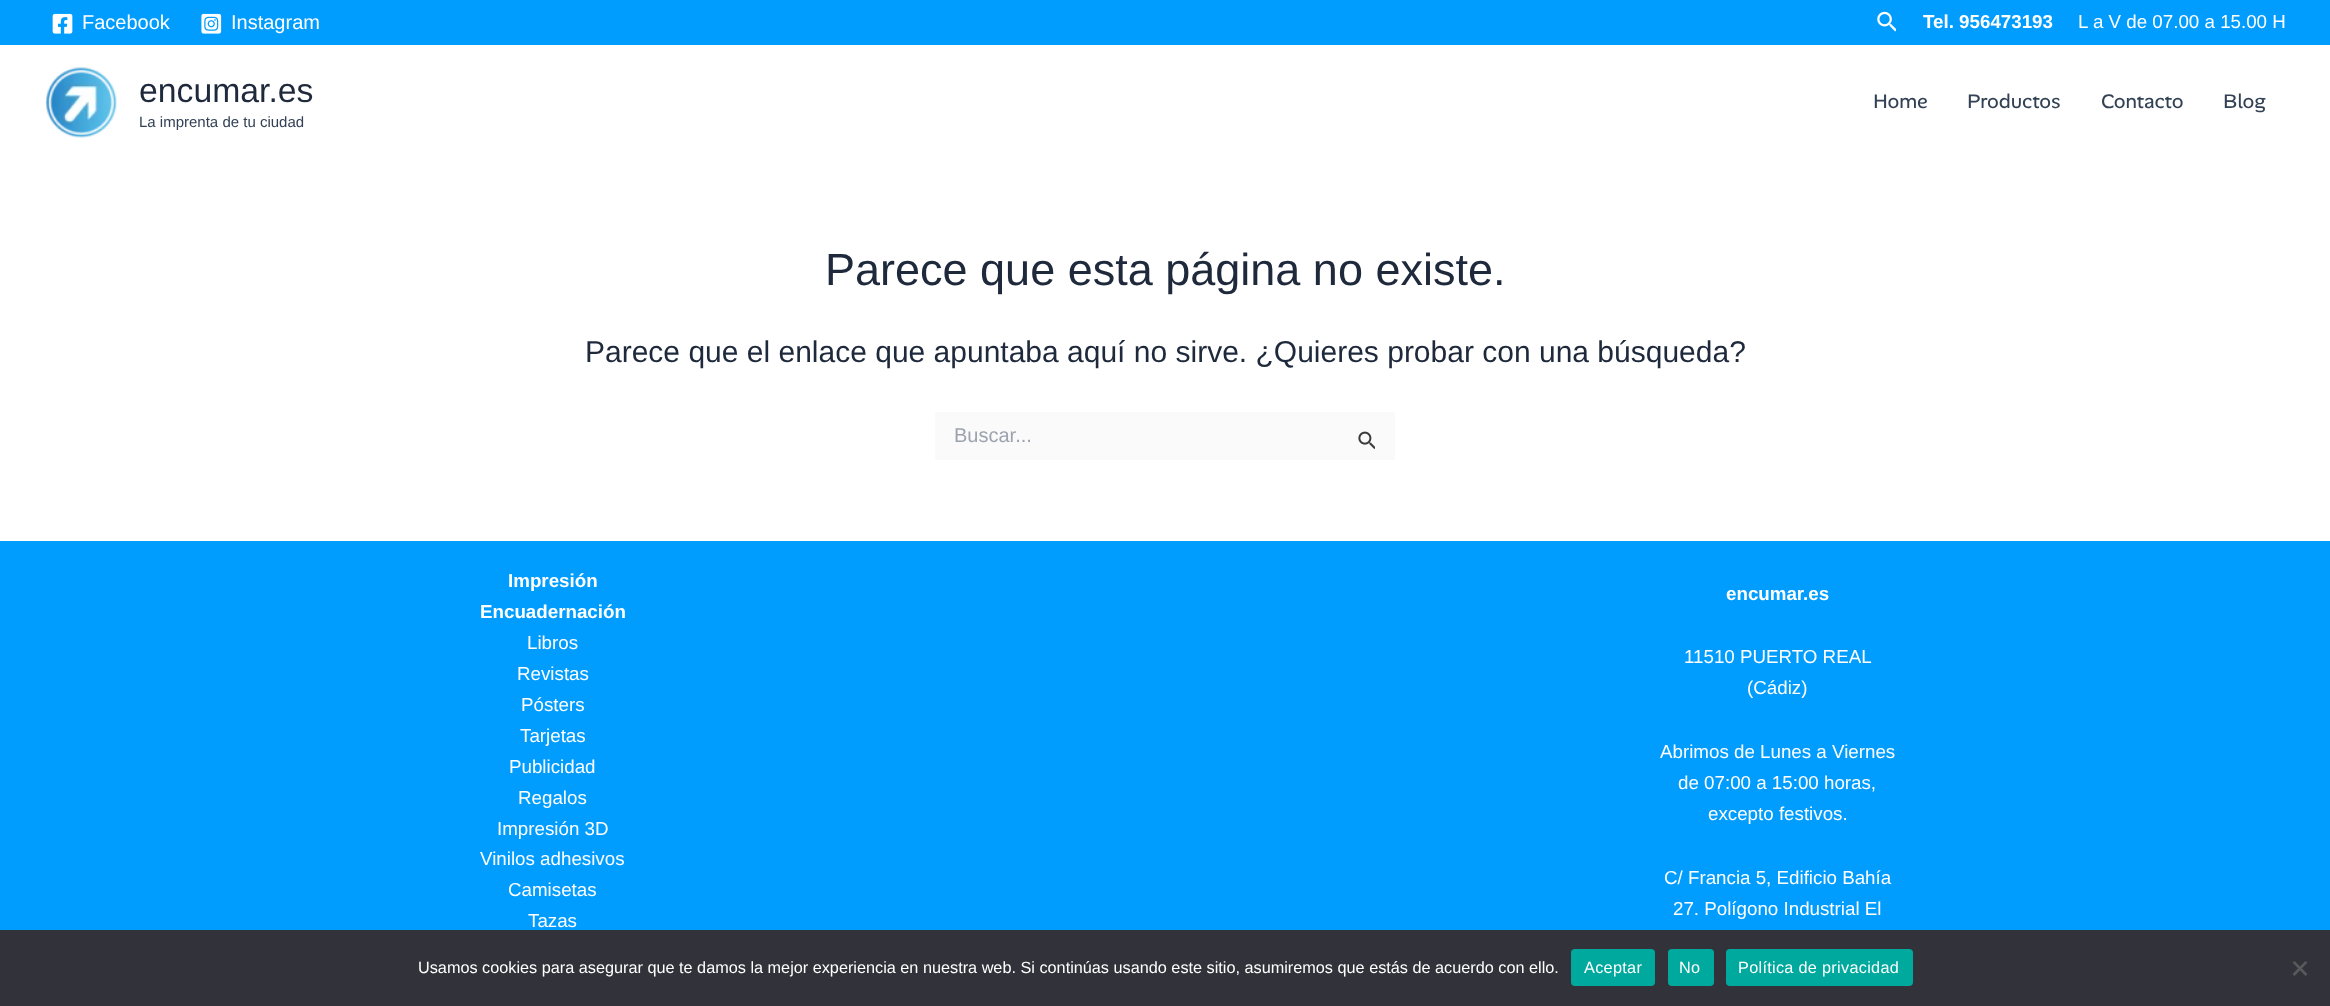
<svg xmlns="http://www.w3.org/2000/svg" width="2330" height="1006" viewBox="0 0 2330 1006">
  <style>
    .t1 { font: 20px Liberation Sans; fill: #fff; }
    .t2 { font: bold 18.75px Liberation Sans; fill: #fff; }
    .t3 { font: 18.75px Liberation Sans; fill: #fff; }
    .t4 { font: 33.75px Liberation Sans; fill: #1e293b; }
    .t5 { font: 15px Liberation Sans; fill: #334155; }
    .t6 { font: 300 20px Alan Sans; fill: #334155; }
    .t7 { font: 45px Liberation Sans; fill: #1e293b; }
    .t8 { font: 30px Liberation Sans; fill: #1e293b; }
    .t9 { font: 20px Liberation Sans; fill: #9ca3af; }
    .t10 { font: 16.25px Liberation Sans; fill: #fff; }
    .t11 { font: 16.25px Liberation Sans; letter-spacing: 0.3px; fill: #fff; }
  </style>
  <rect width="100%" height="100%" fill="#fff"/>
  <rect x="0" y="0" width="2330" height="45" fill="#009dff"/>
  <image x="52" y="13" width="21" height="21" href="images/1.png"/>
  <text x="82" y="29" class="t1">Facebook</text>
  <image x="201" y="13" width="21" height="21" href="images/2.png"/>
  <text x="231" y="29" class="t1">Instagram</text>
  <image x="1877" y="11" width="19" height="21" href="images/3.png"/>
  <text x="1923" y="28" class="t2">Tel. 956473193</text>
  <text x="2078" y="28" class="t3">L a V de 07.00 a 15.00 H</text>
  <image x="45" y="67" width="72" height="71" href="images/4.png"/>
  <text x="139" y="102" class="t4">encumar.es</text>
  <text x="139" y="127" class="t5">La imprenta de tu ciudad</text>
  <text x="1873" y="108" class="t6">Home</text>
  <text x="1967" y="108" class="t6">Productos</text>
  <text x="2101" y="108" class="t6">Contacto</text>
  <text x="2223" y="108" class="t6">Blog</text>
  <text x="825" y="285" class="t7">Parece que esta página no existe.</text>
  <text x="585" y="362" class="t8">Parece que el enlace que apuntaba aquí no sirve. ¿Quieres probar con una búsqueda?</text>
  <rect x="934.5" y="411.5" width="461" height="49" rx="2" fill="#fafafa" stroke="#fff"/>
  <text x="954" y="442" class="t9">Buscar...</text>
  <image x="1358" y="431" width="17" height="18" href="images/5.png"/>
  <rect x="0" y="541" width="2330" height="389" fill="#009dff"/>
  <text x="508" y="587" class="t2">Impresión</text>
  <text x="480" y="618" class="t2">Encuadernación</text>
  <text x="527" y="649" class="t3">Libros</text>
  <text x="517" y="680" class="t3">Revistas</text>
  <text x="521" y="711" class="t3">Pósters</text>
  <text x="520" y="742" class="t3">Tarjetas</text>
  <text x="509" y="773" class="t3">Publicidad</text>
  <text x="518" y="804" class="t3">Regalos</text>
  <text x="497" y="835" class="t3">Impresión 3D</text>
  <text x="480" y="865" class="t3">Vinilos adhesivos</text>
  <text x="508" y="896" class="t3">Camisetas</text>
  <text x="528" y="927" class="t3">Tazas</text>
  <text x="1726" y="600" class="t2">encumar.es</text>
  <text x="1684" y="663" class="t3">11510 PUERTO REAL</text>
  <text x="1747" y="694" class="t3">(Cádiz)</text>
  <text x="1660" y="758" class="t3">Abrimos de Lunes a Viernes</text>
  <text x="1678" y="789" class="t3">de 07:00 a 15:00 horas,</text>
  <text x="1708" y="820" class="t3">excepto festivos.</text>
  <text x="1664" y="884" class="t3">C/ Francia 5, Edificio Bahía</text>
  <text x="1673" y="915" class="t3">27. Polígono Industrial El</text>
  <rect x="0" y="930" width="2330" height="76" fill="#32323a"/>
  <text x="418" y="973" class="t10">Usamos cookies para asegurar que te damos la mejor experiencia en nuestra web. Si continúas usando este sitio, asumiremos que estás de acuerdo con ello.</text>
  <rect x="1571" y="949" width="84" height="37" rx="4" fill="#00a99d"/>
  <text x="1584" y="973" class="t11">Aceptar</text>
  <rect x="1668" y="949" width="46" height="37" rx="4" fill="#00a99d"/>
  <text x="1679" y="973" class="t11">No</text>
  <rect x="1726" y="949" width="187" height="37" rx="4" fill="#00a99d"/>
  <text x="1738" y="973" class="t11">Política de privacidad</text>
  <path d="M2305.5 961L2307.5 962.5L2294.5 976L2292.5 974Z" fill="#59595d"/>
  <path d="M2292.5 962.5L2294.5 961L2307.5 974L2305.5 976Z" fill="#59595d"/>
</svg>
